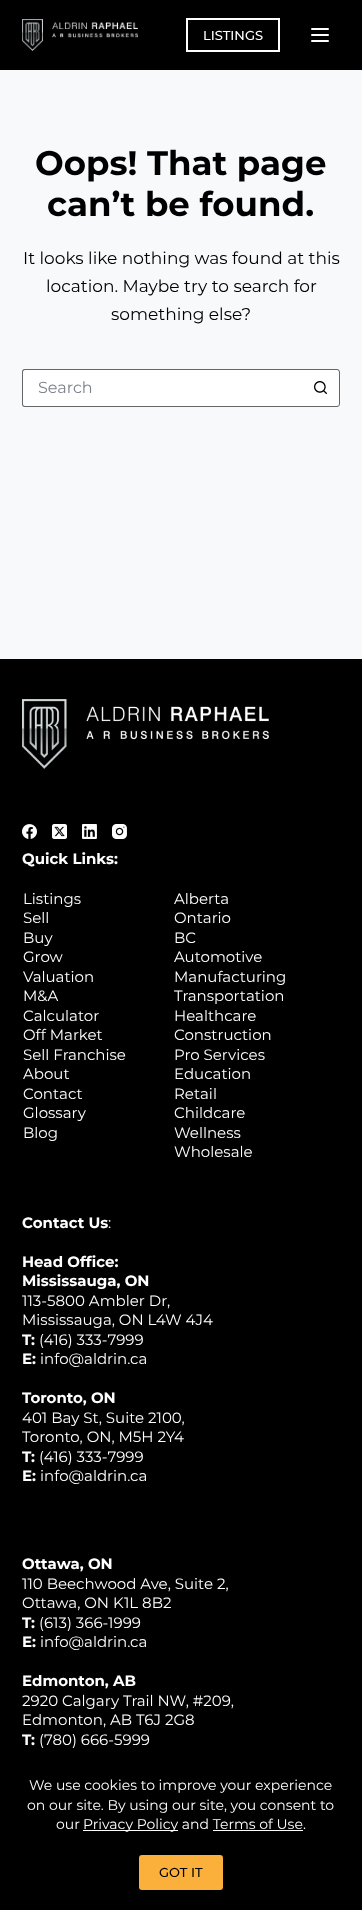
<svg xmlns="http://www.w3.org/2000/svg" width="362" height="1910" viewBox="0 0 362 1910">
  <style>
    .t1 { font: 500 13px Montserrat; fill: #fff; }
    .t2 { font: bold 34px Montserrat; fill: #000; }
    .t3 { font: 17px Montserrat; fill: #000; }
    .t4 { font: 16px Montserrat; fill: #7d848b; }
    .t5 { font: bold 15px Montserrat; fill: #fff; }
    .t6 { font: 15px Montserrat; fill: #fff; }
    .t7 { font: 14px Montserrat; fill: #fff; }
    .t8 { font: 500 13px Montserrat; fill: #000; }
  </style>
  <rect width="100%" height="100%" fill="#f8f9fb"/>
  <rect x="0" y="0" width="362" height="70" fill="#000"/>
  <image x="22" y="19" width="116" height="33" href="images/1.png"/>
  <rect x="187" y="19" width="92" height="32" fill="none" stroke="#fff" stroke-width="2"/>
  <text x="203" y="40" class="t1">LISTINGS</text>
  <rect x="311" y="28" width="18" height="2" rx="1" fill="#fff"/>
  <rect x="311" y="34" width="18" height="2" rx="1" fill="#fff"/>
  <rect x="311" y="40" width="18" height="2" rx="1" fill="#fff"/>
  <text x="35" y="175" class="t2">Oops! That page</text>
  <text x="47" y="216" class="t2">can’t be found.</text>
  <text x="23" y="264" class="t3">It looks like nothing was found at this</text>
  <text x="46" y="292" class="t3">location. Maybe try to search for</text>
  <text x="111" y="320" class="t3">something else?</text>
  <path d="M25 369H302V407H25C23.5 407 22 405.5 22 404V372C22 370.5 23.5 369 25 369Z" fill="#fff"/>
  <path d="M25 369H302V407H25C23 407 22 406 22 404V372C22 370 23 369 25 369ZM25 370H302V406H25C24 406 23 405 23 404V372C23 371 24 370 25 370Z" fill="#666" fill-rule="evenodd"/>
  <text x="38" y="393" class="t4">Search</text>
  <path d="M302 369H337C338.5 369 340 370.5 340 372V404C340 405.5 338.5 407 337 407H302Z" fill="#fff"/>
  <path d="M302 369H337C338.5 369 340 370.5 340 372V404C340 405.5 338.5 407 337 407H302ZM302 370H337C338 370 339 371 339 372V404C339 405 338 406 337 406H302Z" fill="#666" fill-rule="evenodd"/>
  <image x="314" y="381" width="13" height="13" href="images/2.png"/>
  <rect x="0" y="659" width="362" height="1251" fill="#000"/>
  <image x="22" y="699" width="247" height="70" href="images/3.png"/>
  <image x="22" y="824" width="15" height="15" href="images/4.png"/>
  <image x="52" y="824" width="15" height="15" href="images/5.png"/>
  <image x="82" y="824" width="15" height="15" href="images/6.png"/>
  <image x="112" y="824" width="15" height="15" href="images/7.png"/>
  <text x="22" y="864" class="t5">Quick Links:</text>
  <text x="23" y="904" class="t6">Listings</text>
  <text x="174" y="904" class="t6">Alberta</text>
  <text x="23" y="923" class="t6">Sell</text>
  <text x="174" y="923" class="t6">Ontario</text>
  <text x="23" y="943" class="t6">Buy</text>
  <text x="174" y="943" class="t6">BC</text>
  <text x="23" y="962" class="t6">Grow</text>
  <text x="174" y="962" class="t6">Automotive</text>
  <text x="23" y="982" class="t6">Valuation</text>
  <text x="174" y="982" class="t6">Manufacturing</text>
  <text x="23" y="1001" class="t6">M&amp;A</text>
  <text x="174" y="1001" class="t6">Transportation</text>
  <text x="23" y="1021" class="t6">Calculator</text>
  <text x="174" y="1021" class="t6">Healthcare</text>
  <text x="23" y="1040" class="t6">Off Market</text>
  <text x="174" y="1040" class="t6">Construction</text>
  <text x="23" y="1060" class="t6">Sell Franchise</text>
  <text x="174" y="1060" class="t6">Pro Services</text>
  <text x="23" y="1079" class="t6">About</text>
  <text x="174" y="1079" class="t6">Education</text>
  <text x="23" y="1099" class="t6">Contact</text>
  <text x="174" y="1099" class="t6">Retail</text>
  <text x="23" y="1118" class="t6">Glossary</text>
  <text x="174" y="1118" class="t6">Childcare</text>
  <text x="23" y="1138" class="t6">Blog</text>
  <text x="174" y="1138" class="t6">Wellness</text>
  <text x="174" y="1157" class="t6">Wholesale</text>
  <text x="22" y="1228" class="t5">Contact Us</text>
  <text x="108" y="1228" class="t6">:</text>
  <text x="22" y="1267" class="t5">Head Office:</text>
  <text x="22" y="1286" class="t5">Mississauga, ON</text>
  <text x="22" y="1306" class="t6">113-5800 Ambler Dr,</text>
  <text x="22" y="1325" class="t6">Mississauga, ON L4W 4J4</text>
  <text x="22" y="1345" class="t5">T:</text>
  <text x="39" y="1345" class="t6">(416) 333-7999</text>
  <text x="22" y="1364" class="t5">E:</text>
  <text x="40" y="1364" class="t6">info@aldrin.ca</text>
  <text x="22" y="1403" class="t5">Toronto, ON</text>
  <text x="22" y="1423" class="t6">401 Bay St, Suite 2100,</text>
  <text x="22" y="1442" class="t6">Toronto, ON, M5H 2Y4</text>
  <text x="22" y="1462" class="t5">T:</text>
  <text x="39" y="1462" class="t6">(416) 333-7999</text>
  <text x="22" y="1481" class="t5">E:</text>
  <text x="40" y="1481" class="t6">info@aldrin.ca</text>
  <text x="22" y="1569" class="t5">Ottawa, ON</text>
  <text x="22" y="1589" class="t6">110 Beechwood Ave, Suite 2,</text>
  <text x="22" y="1608" class="t6">Ottawa, ON K1L 8B2</text>
  <text x="22" y="1628" class="t5">T:</text>
  <text x="39" y="1628" class="t6">(613) 366-1999</text>
  <text x="22" y="1647" class="t5">E:</text>
  <text x="40" y="1647" class="t6">info@aldrin.ca</text>
  <text x="22" y="1686" class="t5">Edmonton, AB</text>
  <text x="22" y="1706" class="t6">2920 Calgary Trail NW, #209,</text>
  <text x="22" y="1725" class="t6">Edmonton, AB T6J 2G8</text>
  <text x="22" y="1745" class="t5">T:</text>
  <text x="39" y="1745" class="t6">(780) 666-5999</text>
  <text x="29" y="1790" class="t7">We use cookies to improve your experience</text>
  <text x="27" y="1810" class="t7">on our site. By using our site, you consent to</text>
  <text x="56" y="1829" class="t7">our</text>
  <rect x="83" y="1830" width="95" height="1" fill="#fff"/>
  <text x="83" y="1829" class="t7">Privacy Policy and Terms of Use.</text>
  <rect x="213" y="1830" width="90" height="1" fill="#fff"/>
  <rect x="139" y="1855" width="84" height="35" rx="3" fill="#fbb03b"/>
  <text x="159" y="1877" class="t8">GOT IT</text>
</svg>
